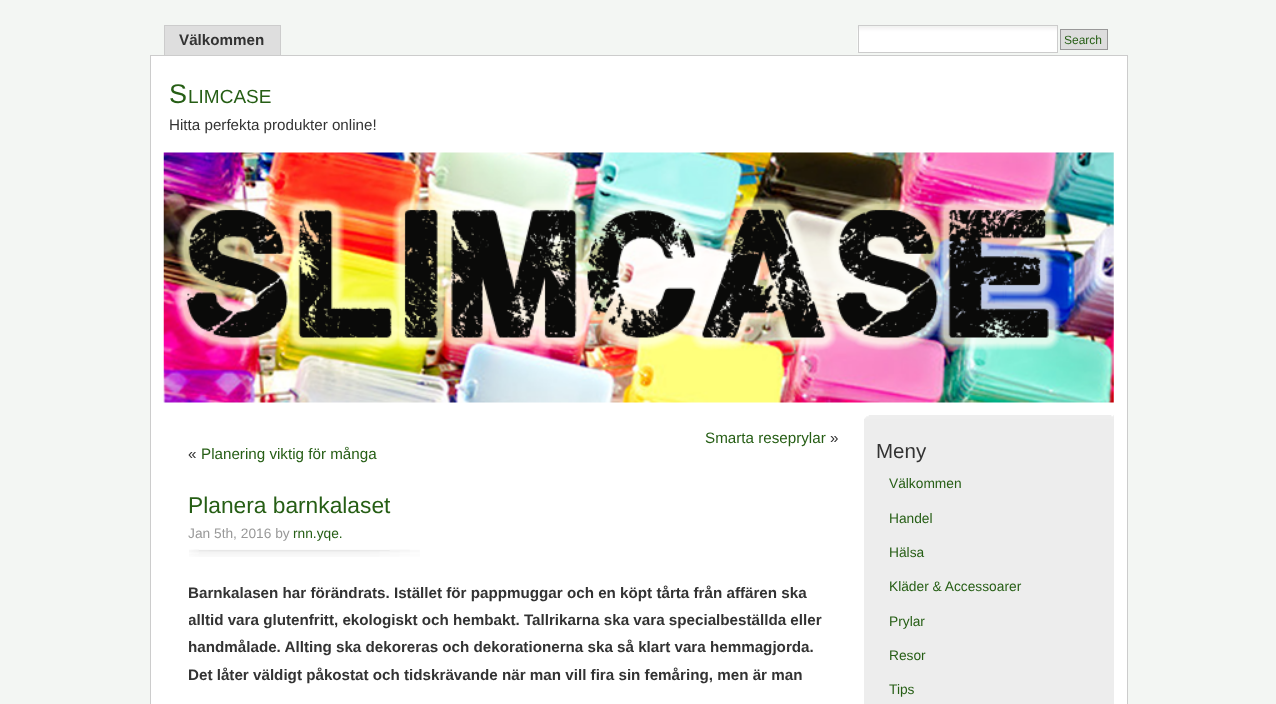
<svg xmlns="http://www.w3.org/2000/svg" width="1276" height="704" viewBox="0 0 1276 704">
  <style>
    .t1 { font: bold 15.2px Liberation Sans; fill: #333; }
    .t2 { font: 12px Liberation Sans; fill: #265e15; }
    .t3 { font: 27px Liberation Sans; fill: #265e15; }
    .t4 { font: 19px Liberation Sans; fill: #265e15; }
    .t5 { font: 15.2px Liberation Sans; fill: #333; }
    .t6 { font: 15.2px Liberation Sans; fill: #265e15; }
    .t7 { font: 22.75px Liberation Sans; fill: #265e15; }
    .t8 { font: 13.75px Liberation Sans; fill: #999; }
    .t9 { font: 13.75px Liberation Sans; fill: #265e15; }
    .t10 { font: 20.5px Liberation Sans; fill: #333; }
  </style>
  <defs>
    <clipPath id="clip1"><rect x="189" y="415" width="925" height="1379"/></clipPath>
  </defs>
  <rect width="100%" height="100%" fill="#f3f6f3"/>
  <rect x="165" y="26" width="115" height="29" fill="#dedede"/>
  <rect x="164" y="25" width="117" height="1" fill="#ccc"/>
  <rect x="280" y="25" width="1" height="30" fill="#ccc"/>
  <rect x="164" y="25" width="1" height="30" fill="#ccc"/>
  <text x="179" y="45" class="t1">Välkommen</text>
  <image x="857" y="26" width="200" height="26" href="images/1.png"/>
  <rect x="858.5" y="25.5" width="199" height="27" fill="none" stroke="#ccc"/>
  <rect x="1060.5" y="29.5" width="47" height="20" fill="#ddd" stroke="#999"/>
  <text x="1064" y="44" class="t2">Search</text>
  <rect x="150.5" y="55.5" width="977" height="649" fill="#fff" stroke="#ccc"/>
  <text x="169" y="103" class="t3">S</text>
  <text x="188" y="103" class="t4">LIMCASE</text>
  <text x="169" y="130" class="t5">Hitta perfekta produkter online!</text>
  <image x="163" y="152" width="951" height="251" href="images/2.png"/>
  <text x="705" y="443" class="t6">Smarta reseprylar</text>
  <text x="830" y="443" class="t5">»</text>
  <text x="188" y="459" class="t5">«</text>
  <text x="201" y="459" class="t6">Planering viktig för många</text>
  <text x="188" y="513" class="t7">Planera barnkalaset</text>
  <image x="189" y="549" width="231" height="8" href="images/3.png"/>
  <text x="188" y="538" class="t8">Jan 5th, 2016 by</text>
  <text x="293" y="538" class="t9">rnn.yqe.</text>
  <text x="188" y="598" class="t1">Barnkalasen har förändrats. Istället för pappmuggar och en köpt tårta från affären ska</text>
  <g clip-path="url(#clip1)">
    <text x="188" y="625" class="t1">alltid vara glutenfritt, ekologiskt och hembakt. Tallrikarna ska vara specialbeställda eller</text>
  </g>
  <text x="188" y="652" class="t1">handmålade. Allting ska dekoreras och dekorationerna ska så klart vara hemmagjorda.</text>
  <text x="188" y="680" class="t1">Det låter väldigt påkostat och tidskrävande när man vill fira sin femåring, men är man</text>
  <rect x="864" y="415" width="250" height="289" fill="#ededed"/>
  <image x="864" y="415" width="250" height="4" href="images/4.png"/>
  <text x="876" y="458" class="t10">Meny</text>
  <text x="889" y="488" class="t9">Välkommen</text>
  <text x="889" y="523" class="t9">Handel</text>
  <text x="889" y="557" class="t9">Hälsa</text>
  <text x="889" y="591" class="t9">Kläder &amp; Accessoarer</text>
  <text x="889" y="626" class="t9">Prylar</text>
  <text x="889" y="660" class="t9">Resor</text>
  <text x="889" y="694" class="t9">Tips</text>
</svg>
